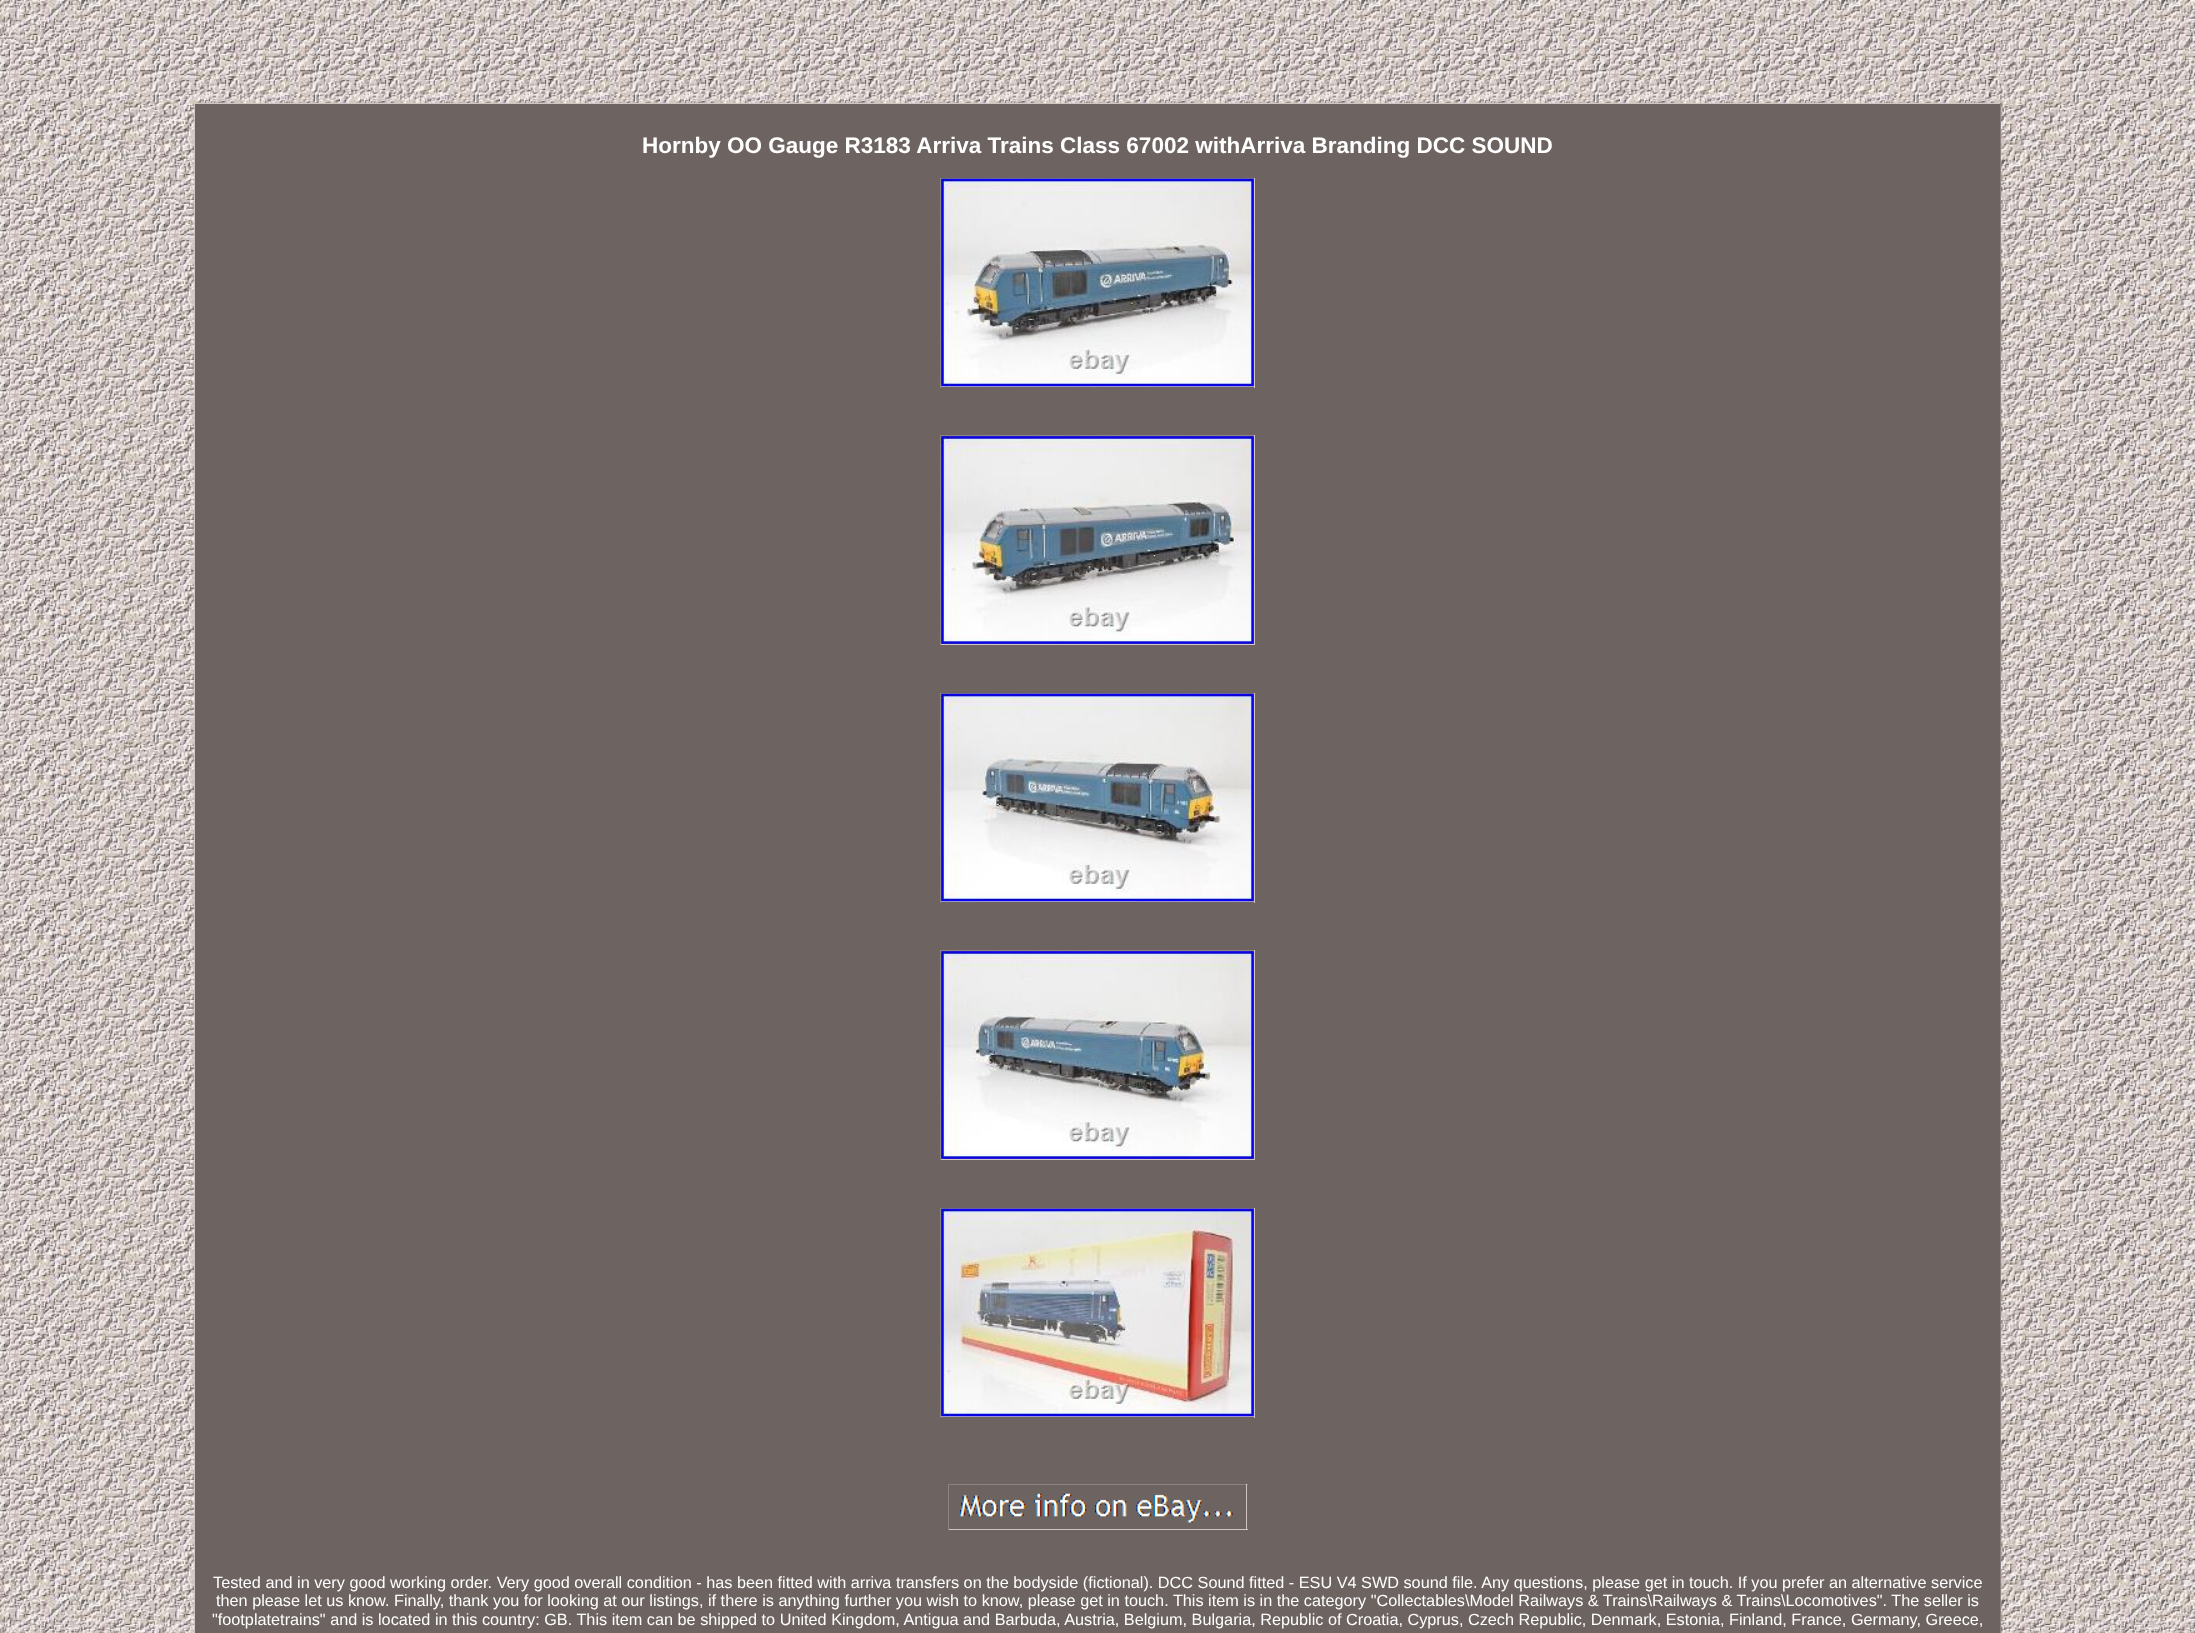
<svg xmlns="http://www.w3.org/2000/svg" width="2195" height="1633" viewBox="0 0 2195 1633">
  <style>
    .t1 { font: bold 22.5px Liberation Sans; fill: #fff; }
    .t2 { font: 16.25px Liberation Sans; fill: #fff; }
  </style>
  <rect width="100%" height="100%" fill="#fff"/>
  <image x="0" y="0" width="2195" height="1633" href="images/1.png"/>
  <rect x="195" y="104" width="1805" height="1529" fill="#6d6361"/>
  <rect x="194" y="103" width="1807" height="1" fill="#d2c4c3"/>
  <rect x="2000" y="103" width="1" height="1530" fill="#8c8382"/>
  <rect x="194" y="103" width="1" height="1530" fill="#d2c4c3"/>
  <text x="642" y="153" class="t1">Hornby OO Gauge R3183 Arriva Trains Class 67002 withArriva Branding DCC SOUND</text>
  <rect x="940" y="178" width="315" height="1" fill="#8c8382"/>
  <rect x="1254" y="178" width="1" height="210" fill="#d2c4c3"/>
  <rect x="940" y="386" width="315" height="1" fill="#d2c4c3"/>
  <rect x="940" y="178" width="1" height="210" fill="#8c8382"/>
  <image x="941" y="178" width="313" height="209" href="images/2.png"/>
  <rect x="940" y="435" width="315" height="1" fill="#8c8382"/>
  <rect x="1254" y="435" width="1" height="210" fill="#d2c4c3"/>
  <rect x="940" y="644" width="315" height="1" fill="#d2c4c3"/>
  <rect x="940" y="435" width="1" height="210" fill="#8c8382"/>
  <image x="941" y="436" width="313" height="208" href="images/3.png"/>
  <rect x="940" y="693" width="315" height="1" fill="#8c8382"/>
  <rect x="1254" y="693" width="1" height="210" fill="#d2c4c3"/>
  <rect x="940" y="901" width="315" height="1" fill="#d2c4c3"/>
  <rect x="940" y="693" width="1" height="210" fill="#8c8382"/>
  <image x="941" y="693" width="313" height="209" href="images/4.png"/>
  <rect x="940" y="950" width="315" height="1" fill="#8c8382"/>
  <rect x="1254" y="950" width="1" height="210" fill="#d2c4c3"/>
  <rect x="940" y="1159" width="315" height="1" fill="#d2c4c3"/>
  <rect x="940" y="950" width="1" height="210" fill="#8c8382"/>
  <image x="941" y="951" width="313" height="208" href="images/5.png"/>
  <rect x="940" y="1208" width="315" height="1" fill="#8c8382"/>
  <rect x="1254" y="1208" width="1" height="210" fill="#d2c4c3"/>
  <rect x="940" y="1416" width="315" height="1" fill="#d2c4c3"/>
  <rect x="940" y="1208" width="1" height="210" fill="#8c8382"/>
  <image x="941" y="1208" width="313" height="209" href="images/6.png"/>
  <rect x="948" y="1484" width="300" height="1" fill="#8c8382"/>
  <rect x="1246" y="1484" width="1" height="46" fill="#d2c4c3"/>
  <rect x="948" y="1529" width="300" height="1" fill="#d2c4c3"/>
  <rect x="948" y="1484" width="1" height="46" fill="#8c8382"/>
  <image x="959" y="1493" width="274" height="30" href="images/7.png"/>
  <text x="213" y="1588" class="t2">Tested and in very good working order. Very good overall condition - has been fitted with arriva transfers on the bodyside (fictional). DCC Sound fitted - ESU V4 SWD sound file. Any questions, please get in touch. If you prefer an alternative service</text>
  <text x="216" y="1606" class="t2">then please let us know. Finally, thank you for looking at our listings, if there is anything further you wish to know, please get in touch. This item is in the category "Collectables\Model Railways &amp; Trains\Railways &amp; Trains\Locomotives". The seller is</text>
  <text x="212" y="1625" class="t2">"footplatetrains" and is located in this country: GB. This item can be shipped to United Kingdom, Antigua and Barbuda, Austria, Belgium, Bulgaria, Republic of Croatia, Cyprus, Czech Republic, Denmark, Estonia, Finland, France, Germany, Greece,</text>
</svg>
